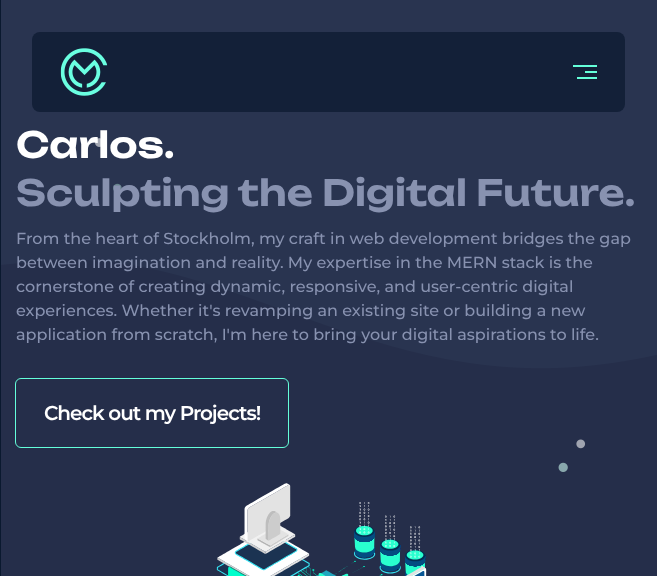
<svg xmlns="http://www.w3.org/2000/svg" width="657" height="576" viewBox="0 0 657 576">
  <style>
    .t1 { font: 600 36px Unbounded; fill: #fff; }
    .t2 { font: 600 36px Unbounded; fill: #8892b0; }
    .t3 { font: 500 16px Montserrat; fill: #8892b0; }
    .t4 { font: 600 20px Montserrat; letter-spacing: -1px; fill: #fff; }
  </style>
  <rect width="100%" height="100%" fill="#0a192f"/>
  <image x="1" y="0" width="656" height="576" href="images/1.png"/>
  <rect x="32" y="32" width="593" height="80" rx="8" fill="#132038"/>
  <image x="60" y="48" width="48" height="48" href="images/2.png"/>
  <rect x="573" y="65" width="24" height="2" fill="#64ffda"/>
  <rect x="585" y="71" width="12" height="2" fill="#64ffda"/>
  <rect x="577" y="77" width="20" height="2" fill="#64ffda"/>
  <text x="16" y="158" class="t1">Carlos.</text>
  <text x="16" y="206" class="t2">Sculpting the Digital Future.</text>
  <text x="16" y="244" class="t3">From the heart of Stockholm, my craft in web development bridges the gap</text>
  <text x="16" y="268" class="t3">between imagination and reality. My expertise in the MERN stack is the</text>
  <text x="16" y="292" class="t3">cornerstone of creating dynamic, responsive, and user-centric digital</text>
  <text x="16" y="316" class="t3">experiences. Whether it's revamping an existing site or building a new</text>
  <text x="16" y="340" class="t3">application from scratch, I'm here to bring your digital aspirations to life.</text>
  <rect x="15.5" y="378.5" width="273" height="69" rx="5.5" fill="none" stroke="#64ffda"/>
  <text x="44" y="420" class="t4">Check out my Projects!</text>
  <image x="216" y="483" width="211" height="93" href="images/3.png"/>
</svg>
